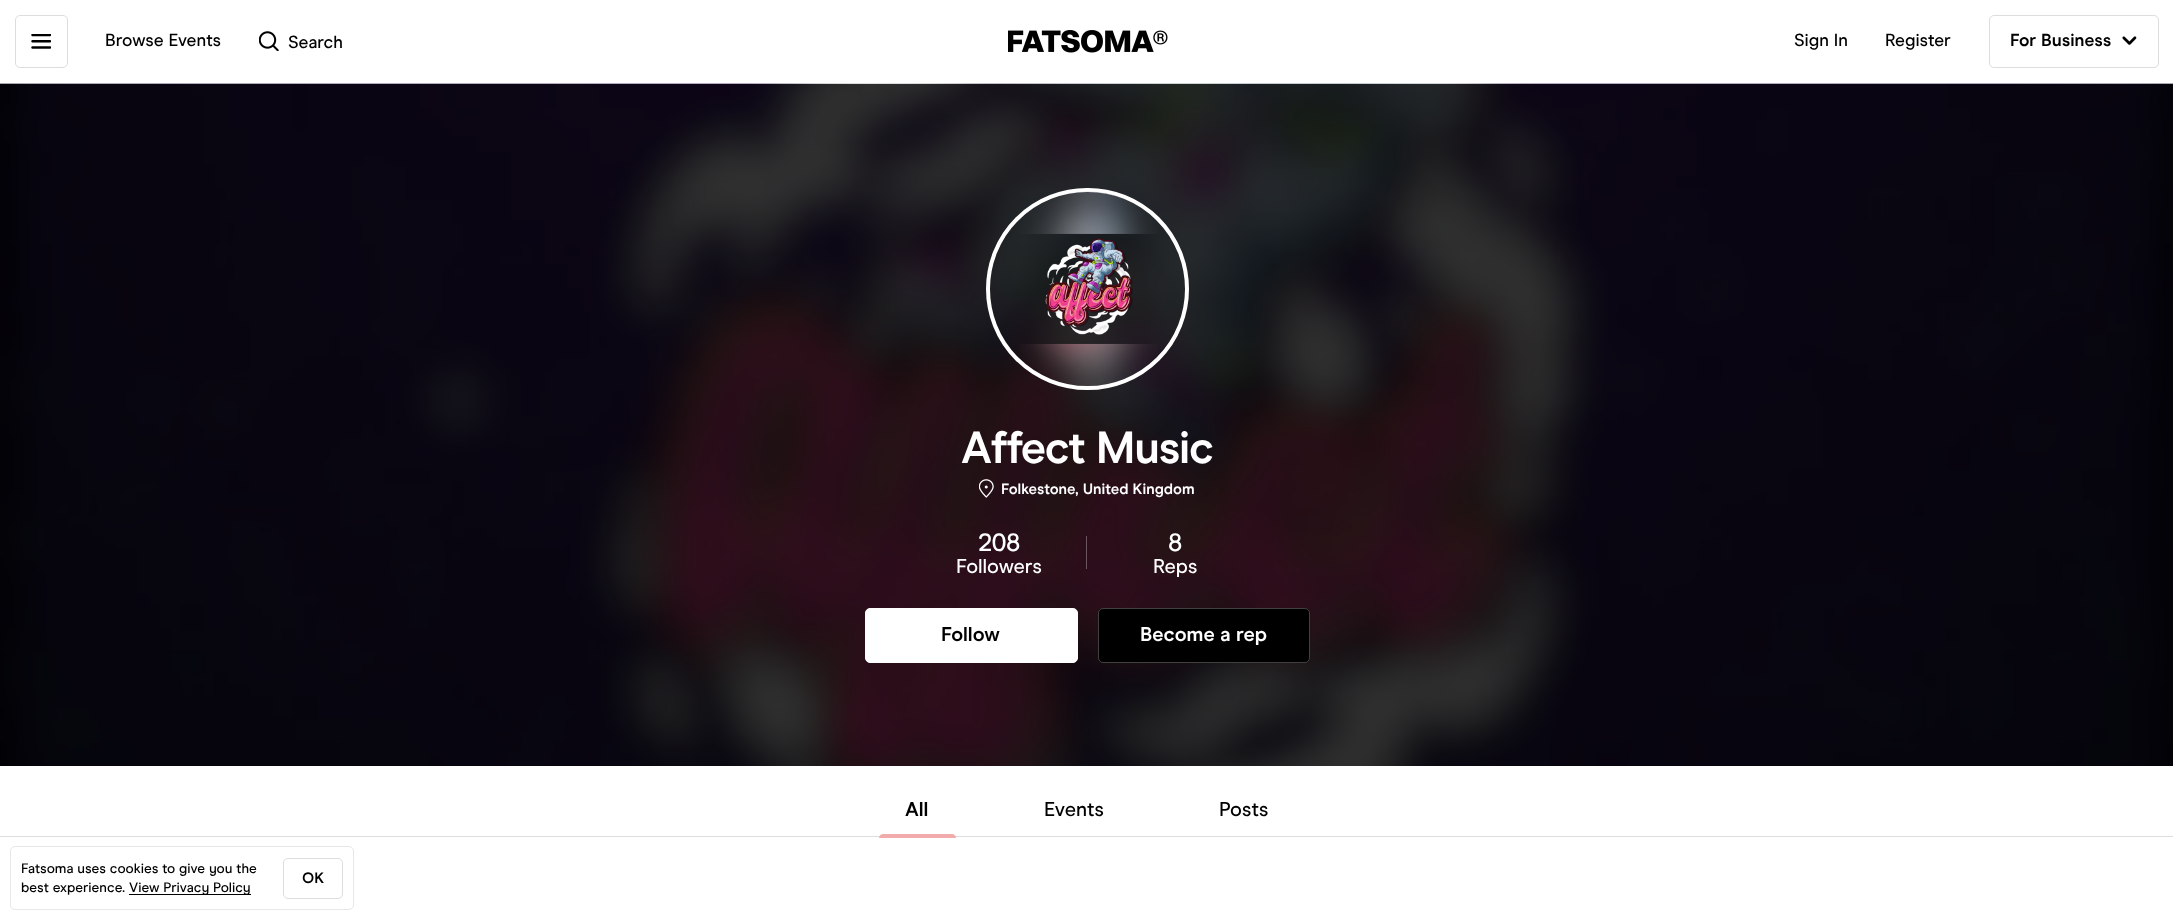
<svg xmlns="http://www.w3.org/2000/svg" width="2173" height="919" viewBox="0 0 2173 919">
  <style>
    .t1 { font: 500 17.5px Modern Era; fill: #000; }
    .t2 { font: bold 17.5px Modern Era; fill: #000; }
    .t3 { font: bold 45px Modern Era; letter-spacing: -1.25px; fill: #fff; }
    .t4 { font: bold 15px Modern Era; fill: #fff; }
    .t5 { font: 500 25px Modern Era; letter-spacing: -0.5px; fill: #fff; }
    .t6 { font: 500 20px Modern Era; fill: #fff; }
    .t7 { font: bold 20px Modern Era; fill: #000; }
    .t8 { font: bold 20px Modern Era; fill: #fff; }
    .t9 { font: 500 20px Modern Era; fill: #000; }
    .t10 { font: 500 13.75px Modern Era; fill: #000; }
    .t11 { font: bold 15px Modern Era; fill: #000; }
  </style>
  <rect width="100%" height="100%" fill="#fff"/>
  <rect x="0" y="83" width="2173" height="1" fill="#ddd"/>
  <rect x="15.5" y="15.5" width="52" height="52" rx="4.5" fill="none" stroke="#ddd"/>
  <image x="31" y="34" width="20" height="15" href="images/1.png"/>
  <text x="105" y="46" class="t1">Browse Events</text>
  <image x="259" y="31" width="20" height="20" href="images/2.png"/>
  <text x="288" y="48" class="t1">Search</text>
  <image x="1008" y="30" width="160" height="23" href="images/3.png"/>
  <text x="1794" y="46" class="t1">Sign In</text>
  <text x="1885" y="46" class="t1">Register</text>
  <rect x="1989.5" y="15.5" width="169" height="52" rx="4.5" fill="none" stroke="#ddd"/>
  <text x="2010" y="46" class="t2">For Business</text>
  <image x="2122" y="36" width="15" height="9" href="images/4.png"/>
  <image x="0" y="83" width="2173" height="683" href="images/5.png"/>
  <rect x="988" y="190" width="199" height="198" rx="99" fill="none" stroke="#fff" stroke-width="4"/>
  <image x="1020" y="191" width="138" height="195" href="images/6.png"/>
  <text x="961" y="463" class="t3">Affect Music</text>
  <image x="979" y="479" width="15" height="19" href="images/7.png"/>
  <text x="1001" y="494" class="t4">Folkestone, United Kingdom</text>
  <text x="978" y="551" class="t5">208</text>
  <text x="956" y="573" class="t6">Followers</text>
  <rect x="1086" y="536" width="1" height="33" fill="#6b565f"/>
  <text x="1168" y="551" class="t5">8</text>
  <text x="1153" y="573" class="t6">Reps</text>
  <rect x="865.5" y="608.5" width="212" height="54" rx="4.5" fill="#fff" stroke="#fff"/>
  <text x="941" y="641" class="t7">Follow</text>
  <rect x="1098" y="608" width="212" height="55" rx="5" fill="#000"/>
  <rect x="1098.5" y="608.5" width="211" height="54" rx="4.5" fill="none" stroke="#ffffff40"/>
  <text x="1140" y="641" class="t8">Become a rep</text>
  <rect x="0" y="836" width="2173" height="1" fill="#ddd"/>
  <text x="905" y="816" class="t7">All</text>
  <path d="M883 834H952C954 834 956 836 956 838H879C879 836 881 834 883 834Z" fill="#f2abab"/>
  <text x="1044" y="816" class="t9">Events</text>
  <text x="1219" y="816" class="t9">Posts</text>
  <rect x="10.5" y="846.5" width="343" height="63" rx="4.5" fill="none" stroke="#e7e7e7"/>
  <text x="21" y="873" class="t10">Fatsoma uses cookies to give you the</text>
  <text x="21" y="892" class="t10">best experience.</text>
  <rect x="129" y="894" width="122" height="1" fill="#000"/>
  <text x="129" y="892" class="t10">View Privacy Policy</text>
  <rect x="283.5" y="858.5" width="59" height="40" rx="4.5" fill="none" stroke="#ddd"/>
  <text x="302" y="883" class="t11">OK</text>
</svg>
